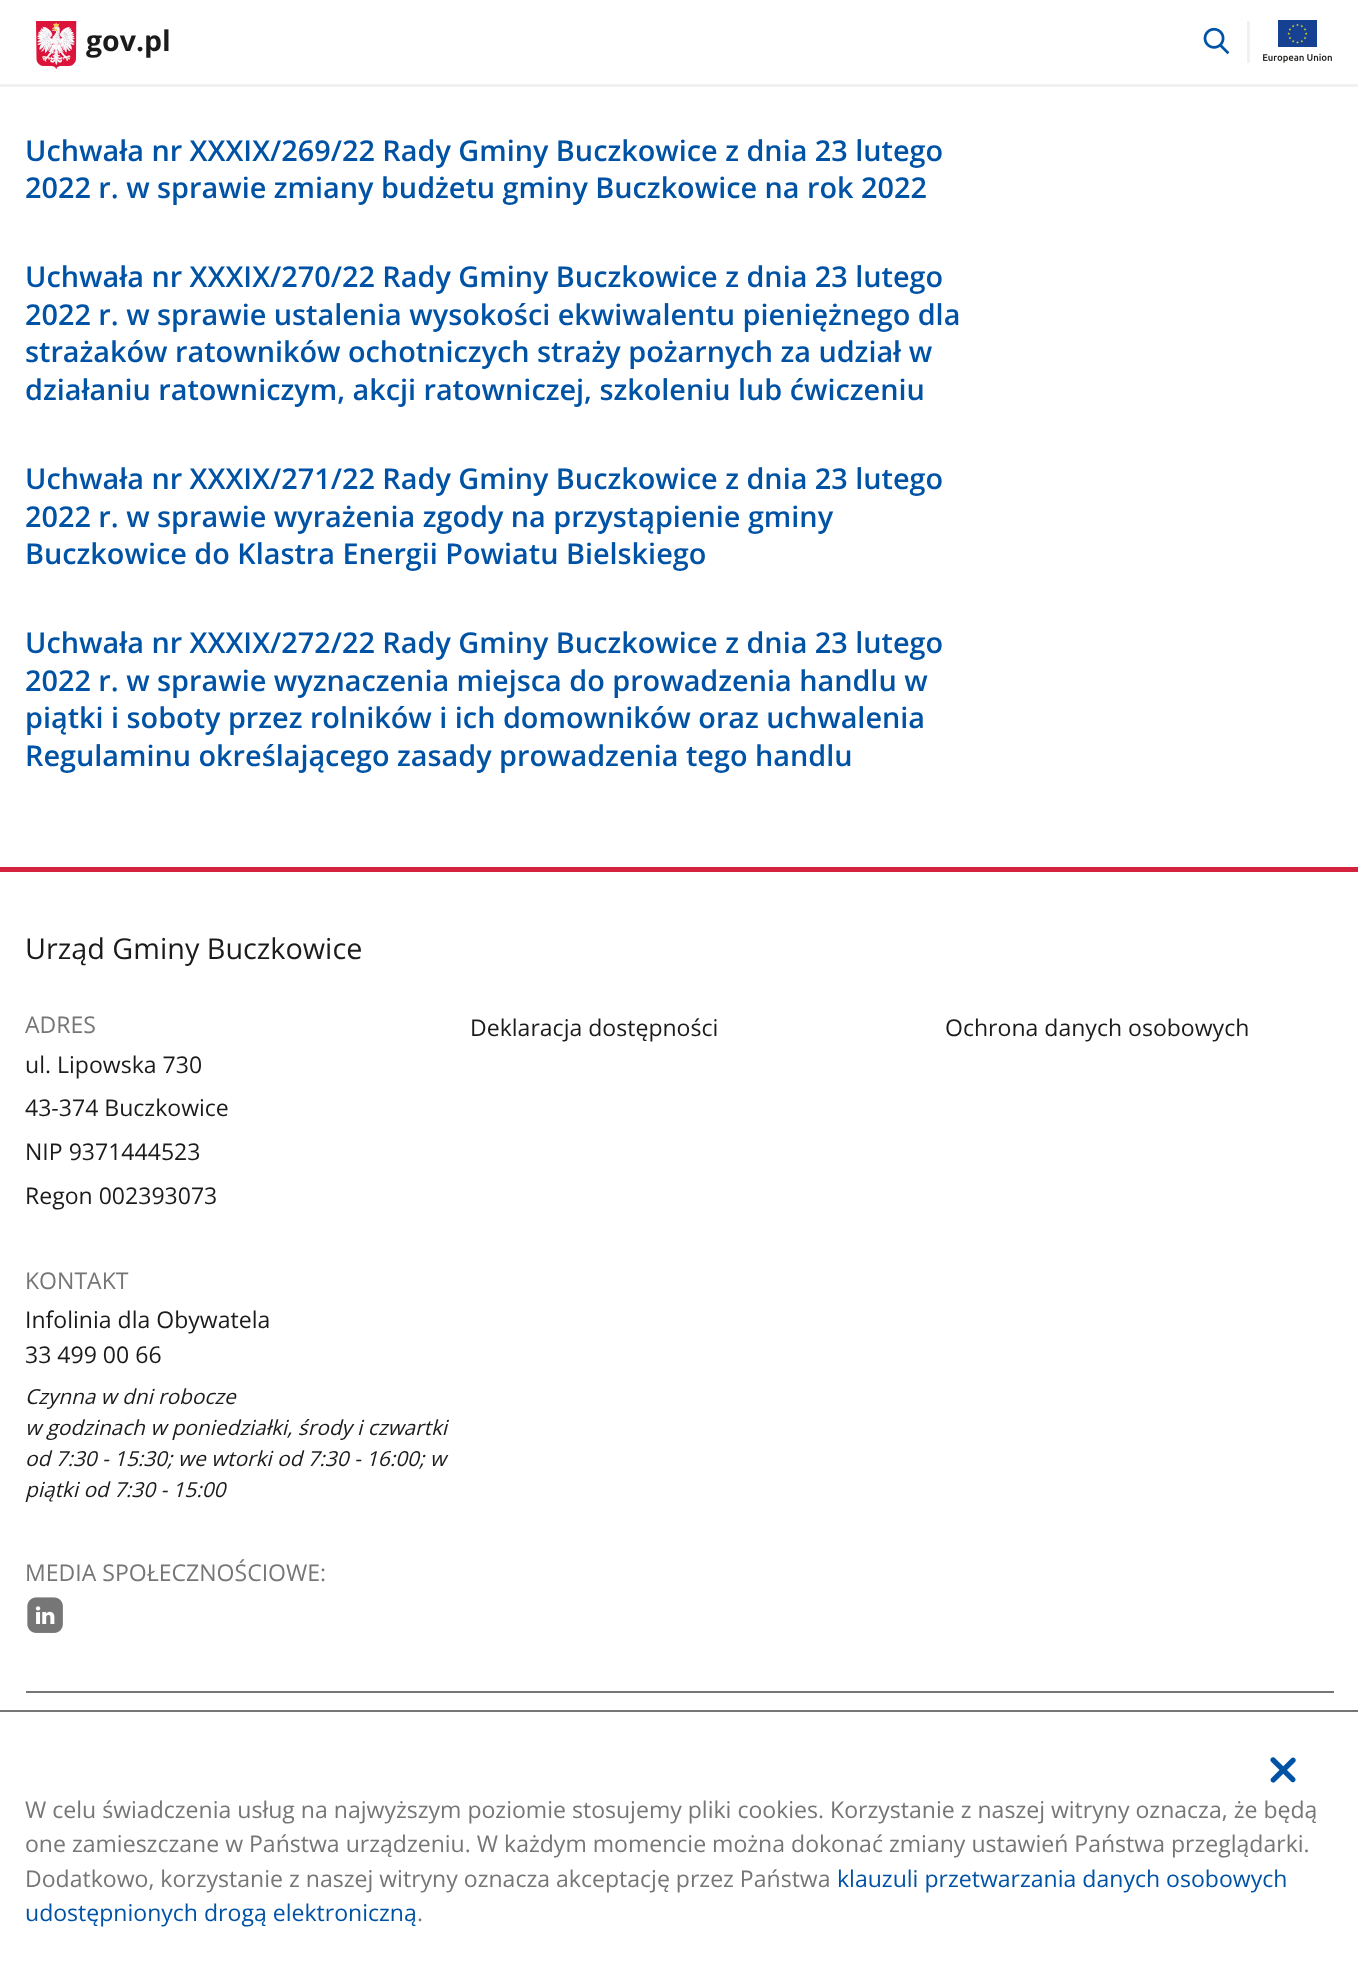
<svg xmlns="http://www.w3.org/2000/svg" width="1358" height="1972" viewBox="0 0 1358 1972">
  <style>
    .t1 { font: bold 28.5px Open Sans; fill: #1b1b1b; }
    .t2 { font: 600 28.8px Open Sans; fill: #0052a5; }
    .t3 { font: 28.8px Open Sans; fill: #1b1b1b; }
    .t4 { font: 23.05px Open Sans; fill: #767676; }
    .t5 { font: 23.05px Open Sans; fill: #1b1b1b; }
    .t6 { font: italic 20.75px Open Sans; fill: #1b1b1b; }
    .t7 { font: 23.05px Open Sans; fill: #0052a5; }
  </style>
  <rect width="100%" height="100%" fill="#fff"/>
  <rect x="0" y="84" width="1358" height="3" fill="#f1f1f1"/>
  <image x="36" y="21" width="41" height="48" href="images/1.png"/>
  <text x="86" y="51" class="t1">gov.pl</text>
  <image x="1203" y="27" width="27" height="28" href="images/2.png"/>
  <rect x="1247" y="21" width="3" height="42" fill="#f1f1f1"/>
  <image x="1263" y="20" width="69" height="43" href="images/3.png"/>
  <text x="25" y="161" class="t2">Uchwała nr XXXIX/269/22 Rady Gminy Buczkowice z dnia 23 lutego</text>
  <text x="25" y="198" class="t2">2022 r. w sprawie zmiany budżetu gminy Buczkowice na rok 2022</text>
  <text x="25" y="287" class="t2">Uchwała nr XXXIX/270/22 Rady Gminy Buczkowice z dnia 23 lutego</text>
  <text x="25" y="325" class="t2">2022 r. w sprawie ustalenia wysokości ekwiwalentu pieniężnego dla</text>
  <text x="25" y="362" class="t2">strażaków ratowników ochotniczych straży pożarnych za udział w</text>
  <text x="25" y="400" class="t2">działaniu ratowniczym, akcji ratowniczej, szkoleniu lub ćwiczeniu</text>
  <text x="25" y="489" class="t2">Uchwała nr XXXIX/271/22 Rady Gminy Buczkowice z dnia 23 lutego</text>
  <text x="25" y="527" class="t2">2022 r. w sprawie wyrażenia zgody na przystąpienie gminy</text>
  <text x="25" y="564" class="t2">Buczkowice do Klastra Energii Powiatu Bielskiego</text>
  <text x="25" y="653" class="t2">Uchwała nr XXXIX/272/22 Rady Gminy Buczkowice z dnia 23 lutego</text>
  <text x="25" y="691" class="t2">2022 r. w sprawie wyznaczenia miejsca do prowadzenia handlu w</text>
  <text x="25" y="728" class="t2">piątki i soboty przez rolników i ich domowników oraz uchwalenia</text>
  <text x="25" y="766" class="t2">Regulaminu określającego zasady prowadzenia tego handlu</text>
  <rect x="0" y="867" width="1358" height="5" fill="#d5233f"/>
  <rect x="26" y="1691" width="1308" height="2" fill="#767676"/>
  <text x="25" y="959" class="t3">Urząd Gminy Buczkowice</text>
  <text x="25" y="1033" class="t4">ADRES</text>
  <text x="25" y="1073" class="t5">ul. Lipowska 730</text>
  <text x="25" y="1116" class="t5">43-374 Buczkowice</text>
  <text x="25" y="1160" class="t5">NIP 9371444523</text>
  <text x="25" y="1204" class="t5">Regon 002393073</text>
  <text x="25" y="1289" class="t4">KONTAKT</text>
  <text x="25" y="1328" class="t5">Infolinia dla Obywatela</text>
  <text x="25" y="1363" class="t5">33 499 00 66</text>
  <text x="25" y="1404" class="t6">Czynna w dni robocze</text>
  <text x="25" y="1435" class="t6">w godzinach w poniedziałki, środy i czwartki</text>
  <text x="25" y="1466" class="t6">od 7:30 - 15:30; we wtorki od 7:30 - 16:00; w</text>
  <text x="25" y="1497" class="t6">piątki od 7:30 - 15:00</text>
  <text x="25" y="1581" class="t4">MEDIA SPOŁECZNOŚCIOWE:</text>
  <image x="27" y="1597" width="36" height="36" href="images/4.png"/>
  <text x="470" y="1036" class="t5">Deklaracja dostępności</text>
  <text x="945" y="1036" class="t5">Ochrona danych osobowych</text>
  <rect x="0" y="1710" width="1358" height="2" fill="#767676"/>
  <image x="1270" y="1757" width="26" height="26" href="images/5.png"/>
  <text x="25" y="1818" class="t4">W celu świadczenia usług na najwyższym poziomie stosujemy pliki cookies. Korzystanie z naszej witryny oznacza, że będą</text>
  <text x="25" y="1852" class="t4">one zamieszczane w Państwa urządzeniu. W każdym momencie można dokonać zmiany ustawień Państwa przeglądarki.</text>
  <text x="25" y="1887" class="t4">Dodatkowo, korzystanie z naszej witryny oznacza akceptację przez Państwa</text>
  <text x="837" y="1887" class="t7">klauzuli przetwarzania danych osobowych</text>
  <text x="25" y="1921" class="t7">udostępnionych drogą elektroniczną</text>
  <text x="417" y="1921" class="t4">.</text>
</svg>
